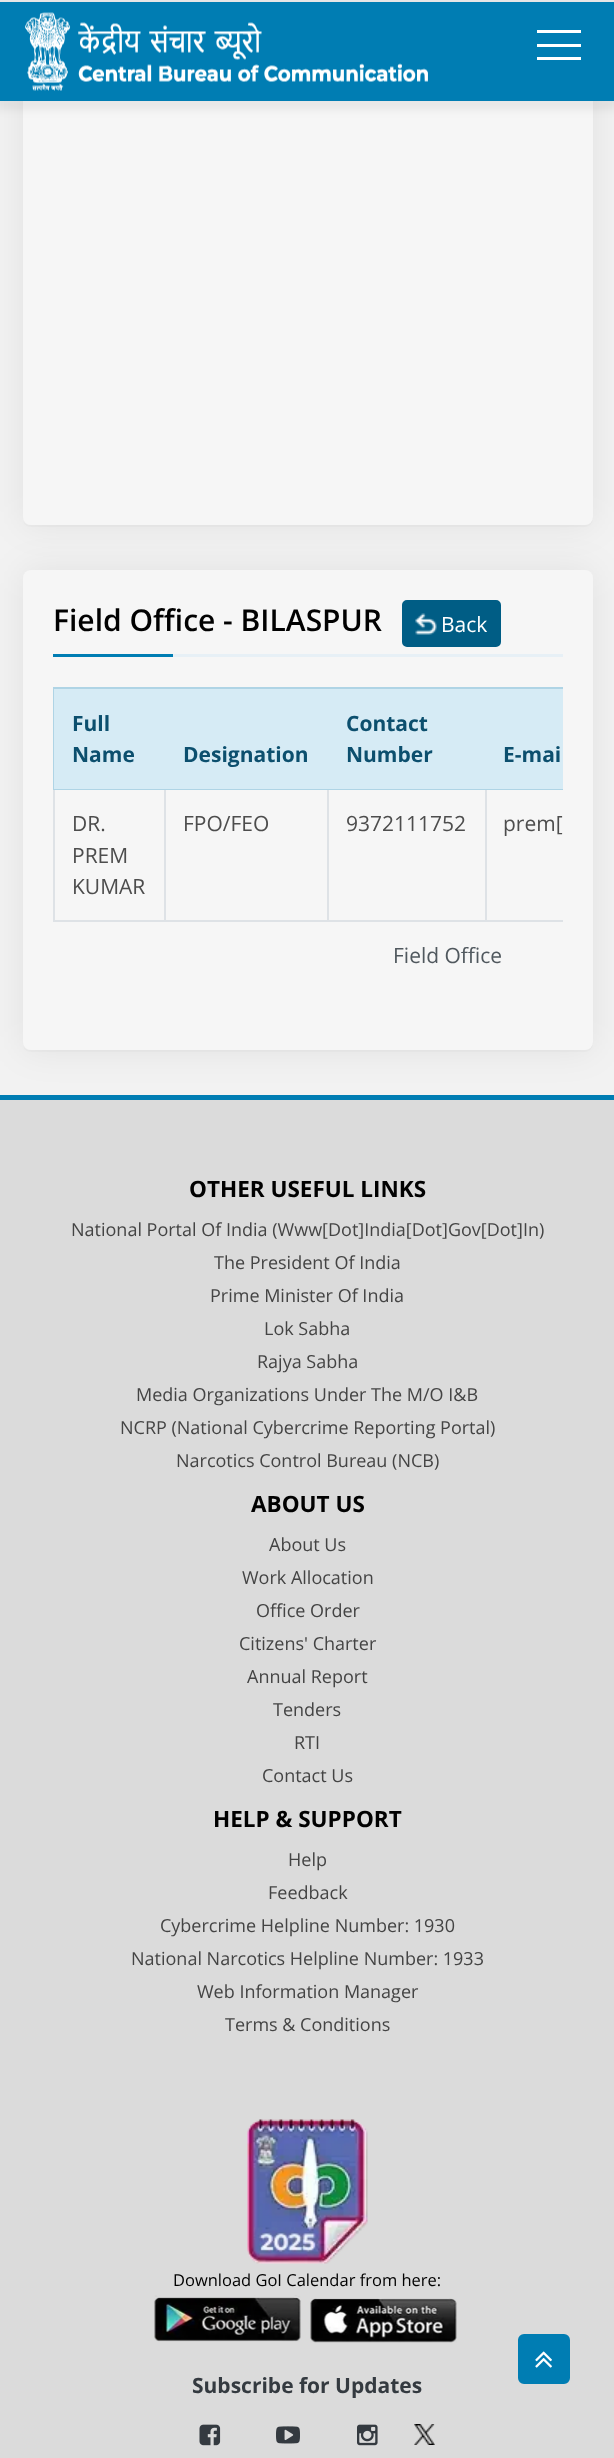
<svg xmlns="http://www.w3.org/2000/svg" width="614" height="2458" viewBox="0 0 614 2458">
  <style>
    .t1 { font: 600 30px Open Sans; fill: #010101; }
    .t2 { font: 21px Open Sans; fill: #fff; }
    .t3 { font: bold 21px Open Sans; fill: #0c4f6e; }
    .t4 { font: 21px Open Sans; fill: #4d4d4d; }
    .t5 { font: 21px Open Sans; fill: #50585e; }
    .t6 { font: bold 22.5px Open Sans; fill: #010101; }
    .t7 { font: 18px Open Sans; fill: #444; }
    .t8 { font: 16.5px Open Sans; fill: #010101; }
    .t9 { font: bold 21px Open Sans; fill: #343a40; }
  </style>
  <rect width="100%" height="100%" fill="#f2f2f2"/>
  <path d="M23 521C24 524 27 527 31 527H585C589 527 593 523 593 519V-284L592-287V518C592 522 589 525 585 525H30C27 525 24 523 23 521Z" fill="#ededed"/>
  <rect x="23" y="-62" width="570" height="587" rx="8" fill="#00000012" filter="blur(18px)"/>
  <rect x="23" y="-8" width="570" height="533" rx="8" fill="#f6f6f6"/>
  <rect x="-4" y="0" width="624" height="110" fill="#0000000f" filter="blur(4.5px)"/>
  <rect x="0" y="2" width="614" height="99" fill="#007db3"/>
  <rect x="0" y="0" width="614" height="2" fill="#e6e6e6"/>
  <image x="25" y="12" width="403" height="79" href="images/1.png"/>
  <rect x="537" y="30" width="44" height="3" fill="#fff"/>
  <rect x="537" y="44" width="44" height="3" fill="#fff"/>
  <rect x="537" y="57" width="44" height="3" fill="#fff"/>
  <path d="M23 1046C24 1049 27 1052 31 1052H585C589 1052 593 1048 593 1044V580L592 577V1042C592 1047 589 1050 585 1050H30C27 1050 24 1048 23 1046Z" fill="#ededed"/>
  <rect x="23" y="570" width="570" height="480" rx="8" fill="#00000012" filter="blur(18px)"/>
  <rect x="23" y="570" width="570" height="480" rx="8" fill="#f6f6f6"/>
  <rect x="173" y="654" width="390" height="3" fill="#e7f0f6"/>
  <text x="53" y="631" class="t1">Field Office - BILASPUR</text>
  <rect x="403" y="601" width="97" height="45" rx="4" fill="#005d85" stroke="#005d85" stroke-width="2"/>
  <image x="415" y="613" width="22" height="22" href="images/2.png"/>
  <text x="441" y="632" class="t2">Back</text>
  <rect x="53" y="654" width="120" height="3" fill="#007db3"/>
  <rect x="53" y="687" width="510" height="2" fill="#afd4e5"/>
  <rect x="485" y="920" width="78" height="2" fill="#dee2e6"/>
  <rect x="485" y="788" width="2" height="133" fill="#dee2e6"/>
  <rect x="327" y="920" width="159" height="2" fill="#dee2e6"/>
  <rect x="327" y="788" width="2" height="133" fill="#dee2e6"/>
  <rect x="164" y="920" width="165" height="2" fill="#dee2e6"/>
  <rect x="164" y="788" width="2" height="133" fill="#dee2e6"/>
  <rect x="53" y="920" width="112" height="2" fill="#dee2e6"/>
  <rect x="53" y="788" width="2" height="133" fill="#dee2e6"/>
  <rect x="53" y="687" width="2" height="102" fill="#afd4e5"/>
  <rect x="54" y="689" width="509" height="100" fill="#d6ebf5"/>
  <text x="72" y="731" class="t3">Full</text>
  <text x="72" y="762" class="t3">Name</text>
  <text x="183" y="762" class="t3">Designation</text>
  <text x="346" y="731" class="t3">Contact</text>
  <text x="346" y="762" class="t3">Number</text>
  <rect x="53" y="789" width="510" height="1" fill="#afd4e5"/>
  <text x="503" y="762" class="t3">E-mai</text>
  <text x="72" y="831" class="t4">DR.</text>
  <text x="72" y="863" class="t4">PREM</text>
  <text x="72" y="894" class="t4">KUMAR</text>
  <text x="183" y="831" class="t4">FPO/FEO</text>
  <text x="346" y="831" class="t4">9372111752</text>
  <text x="503" y="831" class="t4">prem[</text>
  <text x="393" y="963" class="t5">Field Office</text>
  <rect x="0" y="1100" width="614" height="1358" fill="#dbdbdb"/>
  <rect x="0" y="1095" width="614" height="5" fill="#007db3"/>
  <text x="189" y="1197" class="t6">OTHER USEFUL LINKS</text>
  <text x="71" y="1236" class="t7">National Portal Of India (Www[Dot]India[Dot]Gov[Dot]In)</text>
  <text x="214" y="1269" class="t7">The President Of India</text>
  <text x="210" y="1302" class="t7">Prime Minister Of India</text>
  <text x="264" y="1335" class="t7">Lok Sabha</text>
  <text x="257" y="1368" class="t7">Rajya Sabha</text>
  <text x="136" y="1401" class="t7">Media Organizations Under The M/O I&amp;B</text>
  <text x="120" y="1434" class="t7">NCRP (National Cybercrime Reporting Portal)</text>
  <text x="176" y="1467" class="t7">Narcotics Control Bureau (NCB)</text>
  <text x="251" y="1512" class="t6">ABOUT US</text>
  <text x="269" y="1551" class="t7">About Us</text>
  <text x="242" y="1584" class="t7">Work Allocation</text>
  <text x="256" y="1617" class="t7">Office Order</text>
  <text x="239" y="1650" class="t7">Citizens' Charter</text>
  <text x="247" y="1683" class="t7">Annual Report</text>
  <text x="273" y="1716" class="t7">Tenders</text>
  <text x="294" y="1749" class="t7">RTI</text>
  <text x="262" y="1782" class="t7">Contact Us</text>
  <text x="213" y="1827" class="t6">HELP &amp; SUPPORT</text>
  <text x="288" y="1866" class="t7">Help</text>
  <text x="268" y="1899" class="t7">Feedback</text>
  <text x="160" y="1932" class="t7">Cybercrime Helpline Number: 1930</text>
  <text x="131" y="1965" class="t7">National Narcotics Helpline Number: 1933</text>
  <text x="197" y="1998" class="t7">Web Information Manager</text>
  <text x="225" y="2031" class="t7">Terms &amp; Conditions</text>
  <image x="247" y="2119" width="121" height="145" href="images/3.png"/>
  <text x="173" y="2286" class="t8">Download GoI Calendar from here:</text>
  <image x="154" y="2295" width="147" height="47" href="images/4.png"/>
  <image x="310" y="2298" width="147" height="45" href="images/5.png"/>
  <text x="192" y="2393" class="t9">Subscribe for Updates</text>
  <image x="199" y="2424" width="22" height="22" href="images/6.png"/>
  <image x="276" y="2426" width="24" height="18" href="images/7.png"/>
  <image x="357" y="2424" width="21" height="22" href="images/8.png"/>
  <image x="414" y="2424" width="21" height="21" href="images/9.png"/>
  <rect x="519" y="2335" width="50" height="48" rx="5" fill="#007db3" stroke="#007db3" stroke-width="2"/>
  <image x="535" y="2351" width="17" height="17" href="images/10.png"/>
</svg>
